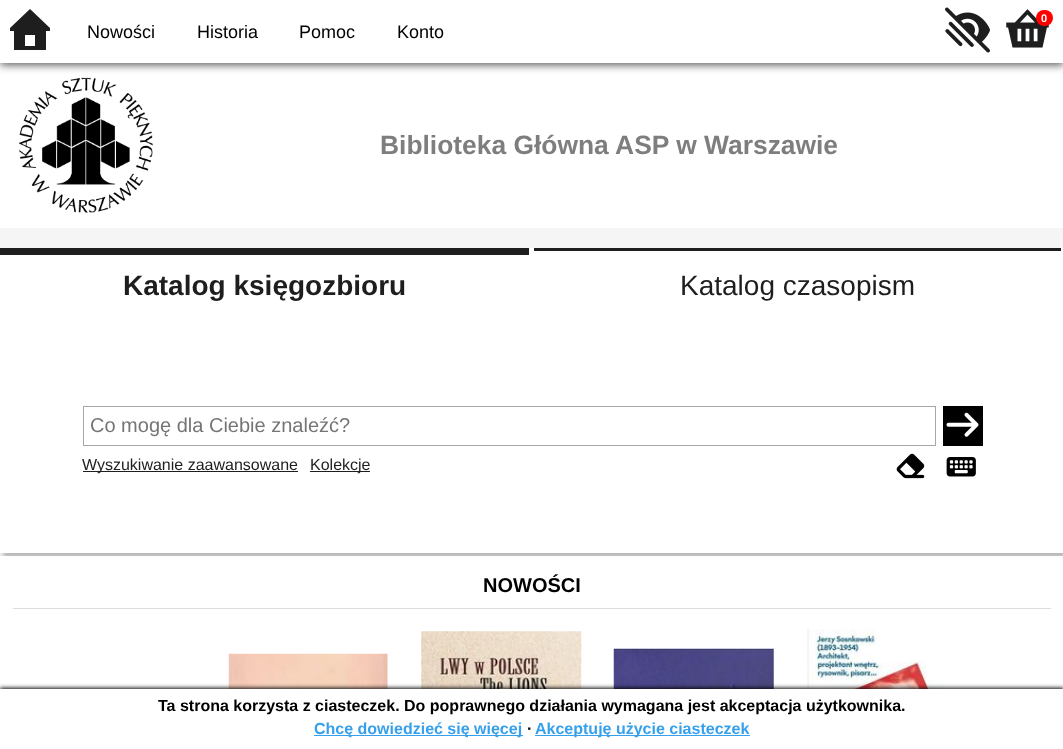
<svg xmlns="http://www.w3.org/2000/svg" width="1063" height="749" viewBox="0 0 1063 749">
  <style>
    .t1 { font: bold 11px Liberation Sans; fill: #fff; }
    .t2 { font: 18px Liberation Sans; fill: #000; }
    .t3 { font: bold 26.4px Liberation Sans; fill: #7e7e7e; }
    .t4 { font: bold 28px Liberation Sans; fill: #1e1e1e; }
    .t5 { font: 28px Liberation Sans; fill: #1e1e1e; }
    .t6 { font: 20px Liberation Sans; fill: #757575; }
    .t7 { font: 16px Liberation Sans; fill: #1e1e1e; }
    .t8 { font: bold 20px Liberation Sans; fill: #000; }
    .t9 { font: bold 16px Liberation Sans; fill: #000; }
    .t10 { font: bold 16px Liberation Sans; fill: #36a0ec; }
  </style>
  <defs>
    <clipPath id="clip1"><path d="M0 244H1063V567H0ZM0 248H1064V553H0Z" clip-rule="evenodd"/></clipPath>
  </defs>
  <rect width="100%" height="100%" fill="#f5f5f5"/>
  <rect x="0" y="63" width="1063" height="165" fill="#fff"/>
  <image x="19" y="77" width="134" height="136" href="images/3.png"/>
  <rect x="0" y="3" width="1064" height="62" fill="#000000a6" filter="blur(4px)"/>
  <rect x="0" y="0" width="1063" height="63" fill="#fff"/>
  <image x="945" y="7" width="45" height="46" href="images/1.png"/>
  <image x="1006" y="9" width="43" height="39" href="images/2.png"/>
  <rect x="1036" y="10" width="17" height="16" rx="8" fill="#f00"/>
  <text x="1041" y="22" class="t1">0</text>
  <path d="M50 31H46V50H14V31H10V28L30 9L50 28ZM35 46V35H25V46Z" fill="#1e1e1e"/>
  <text x="87" y="38" class="t2">Nowości</text>
  <text x="197" y="38" class="t2">Historia</text>
  <text x="299" y="38" class="t2">Pomoc</text>
  <text x="397" y="38" class="t2">Konto</text>
  <text x="380" y="154" class="t3">Biblioteka Główna ASP w Warszawie</text>
  <g clip-path="url(#clip1)">
    <rect x="3" y="253" width="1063" height="305" fill="#00000040" filter="blur(2.5px)"/>
  </g>
  <rect x="0" y="248" width="1063" height="305" fill="#fffffff2"/>
  <rect x="0" y="248" width="529" height="7" fill="#1e1e1e"/>
  <text x="123" y="295" class="t4">Katalog księgozbioru</text>
  <rect x="534" y="248" width="527" height="3" fill="#1e1e1e"/>
  <text x="680" y="295" class="t5">Katalog czasopism</text>
  <rect x="83.5" y="406.5" width="852" height="39" fill="none" stroke="#a7a7a7"/>
  <text x="90" y="432" class="t6">Co mogę dla Ciebie znaleźć?</text>
  <rect x="943" y="406" width="40" height="40" fill="#000"/>
  <image x="946" y="412" width="33" height="25" href="images/4.png"/>
  <rect x="83" y="471" width="215" height="1" fill="#1e1e1e"/>
  <text x="82" y="470" class="t7">Wyszukiwanie zaawansowane</text>
  <rect x="310" y="471" width="60" height="1" fill="#1e1e1e"/>
  <text x="310" y="470" class="t7">Kolekcje</text>
  <image x="896" y="453" width="29" height="26" href="images/5.png"/>
  <image x="946" y="457" width="30" height="20" href="images/6.png"/>
  <rect x="0" y="556" width="1063" height="133" fill="#fffffff2"/>
  <rect x="13" y="608" width="1038" height="1" fill="#ddd"/>
  <text x="483" y="592" class="t8">NOWOŚCI</text>
  <image x="228" y="653" width="160" height="36" href="images/7.png"/>
  <image x="421" y="631" width="161" height="58" href="images/8.png"/>
  <image x="613" y="648" width="161" height="41" href="images/9.png"/>
  <image x="807" y="629" width="160" height="60" href="images/10.png"/>
  <rect x="0" y="688" width="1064" height="61" fill="#000" filter="blur(2px)"/>
  <rect x="0" y="689" width="1063" height="60" fill="#fff"/>
  <text x="158" y="711" class="t9">Ta strona korzysta z ciasteczek. Do poprawnego działania wymagana jest akceptacja użytkownika.</text>
  <rect x="314" y="735" width="209" height="1" fill="#36a0ec"/>
  <text x="314" y="734" class="t10">Chcę dowiedzieć się więcej</text>
  <text x="527" y="734" class="t9">∙</text>
  <rect x="535" y="735" width="215" height="1" fill="#36a0ec"/>
  <text x="535" y="734" class="t10">Akceptuję użycie ciasteczek</text>
</svg>
